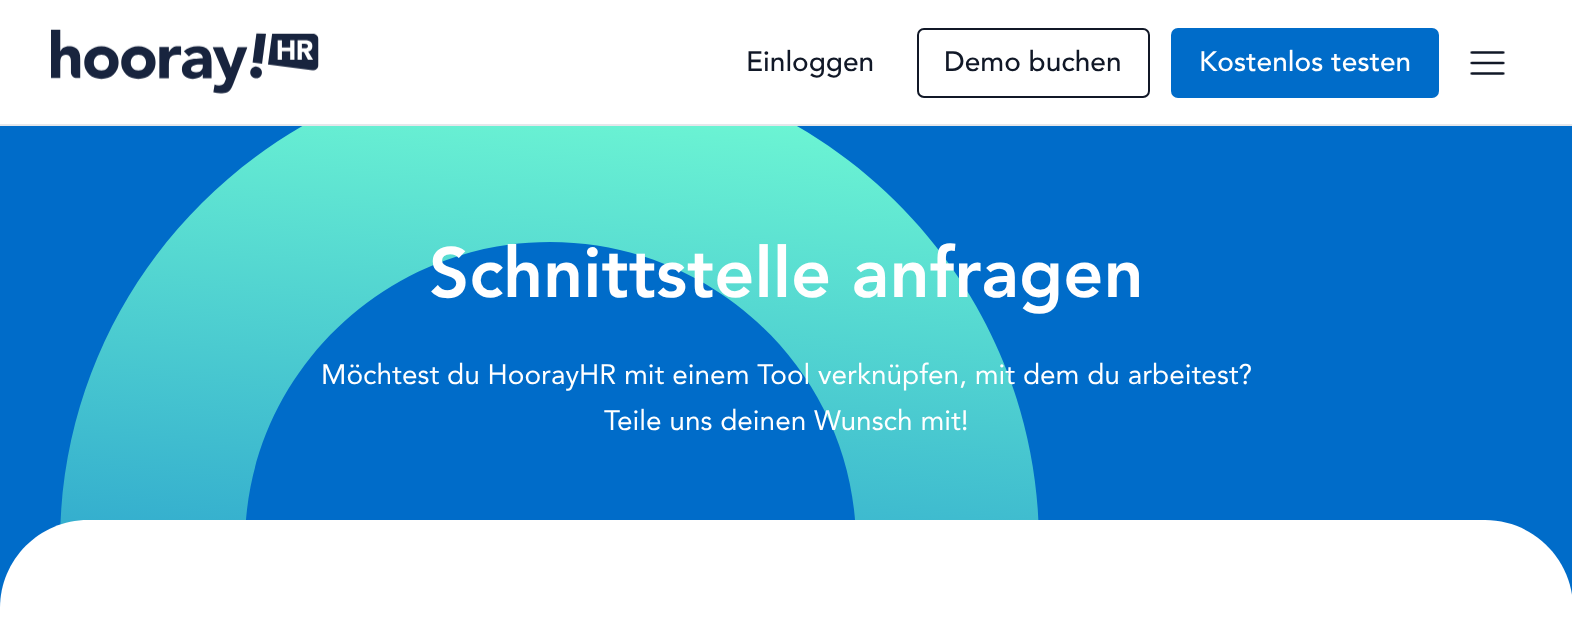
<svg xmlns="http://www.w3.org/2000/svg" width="1572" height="619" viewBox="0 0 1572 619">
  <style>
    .t1 { font: 28px 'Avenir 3'; fill: #111827; }
    .t2 { font: 28px 'Avenir 3'; fill: #fff; }
    .t3 { font: 70px Avenir; fill: #fff; }
    .t4 { font: 28px 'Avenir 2'; fill: #fff; }
  </style>
  <defs>
    <clipPath id="clip1"><rect x="60" y="126" width="980" height="481"/></clipPath>
    <linearGradient id="g1" gradientUnits="userSpaceOnUse" x1="646" y1="38" x2="552" y2="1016"><stop offset="0" stop-color="#74ffd4"/><stop offset="1" stop-color="#006cc9"/></linearGradient>
  </defs>
  <rect width="100%" height="100%" fill="#fff"/>
  <rect x="0" y="124" width="1572" height="2" fill="#e5e7eb"/>
  <image x="51" y="29" width="268" height="65" href="images/1.png"/>
  <text x="746" y="71" class="t1">Einloggen</text>
  <rect x="918" y="29" width="231" height="68" rx="6" fill="none" stroke="#111827" stroke-width="2"/>
  <text x="944" y="71" class="t1">Demo buchen</text>
  <rect x="1171" y="28" width="268" height="70" rx="7" fill="#006cc9"/>
  <text x="1199" y="71" class="t2">Kostenlos testen</text>
  <image x="1470" y="51" width="35" height="24" href="images/2.png"/>
  <rect x="0" y="126" width="1572" height="481" fill="#006cc9"/>
  <g clip-path="url(#clip1)">
    <path d="M550 60C820 60 1039 276 1039 544C1039 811 820 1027 550 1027C279 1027 60 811 60 544C60 276 279 60 550 60ZM550 242C382 242 245 378 245 544C245 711 382 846 550 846C719 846 856 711 856 544C856 378 719 242 550 242Z" fill="url(#g1)" fill-rule="evenodd"/>
  </g>
  <text x="429" y="297" class="t3">Schnittstelle anfragen</text>
  <text x="321" y="384" class="t4">Möchtest du HoorayHR mit einem Tool verknüpfen, mit dem du arbeitest?</text>
  <text x="604" y="430" class="t4">Teile uns deinen Wunsch mit!</text>
  <path d="M88 520H1485C1533.5 520 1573 559.5 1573 608V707H0V608C0 559.5 39.5 520 88 520Z" fill="#fff"/>
</svg>
